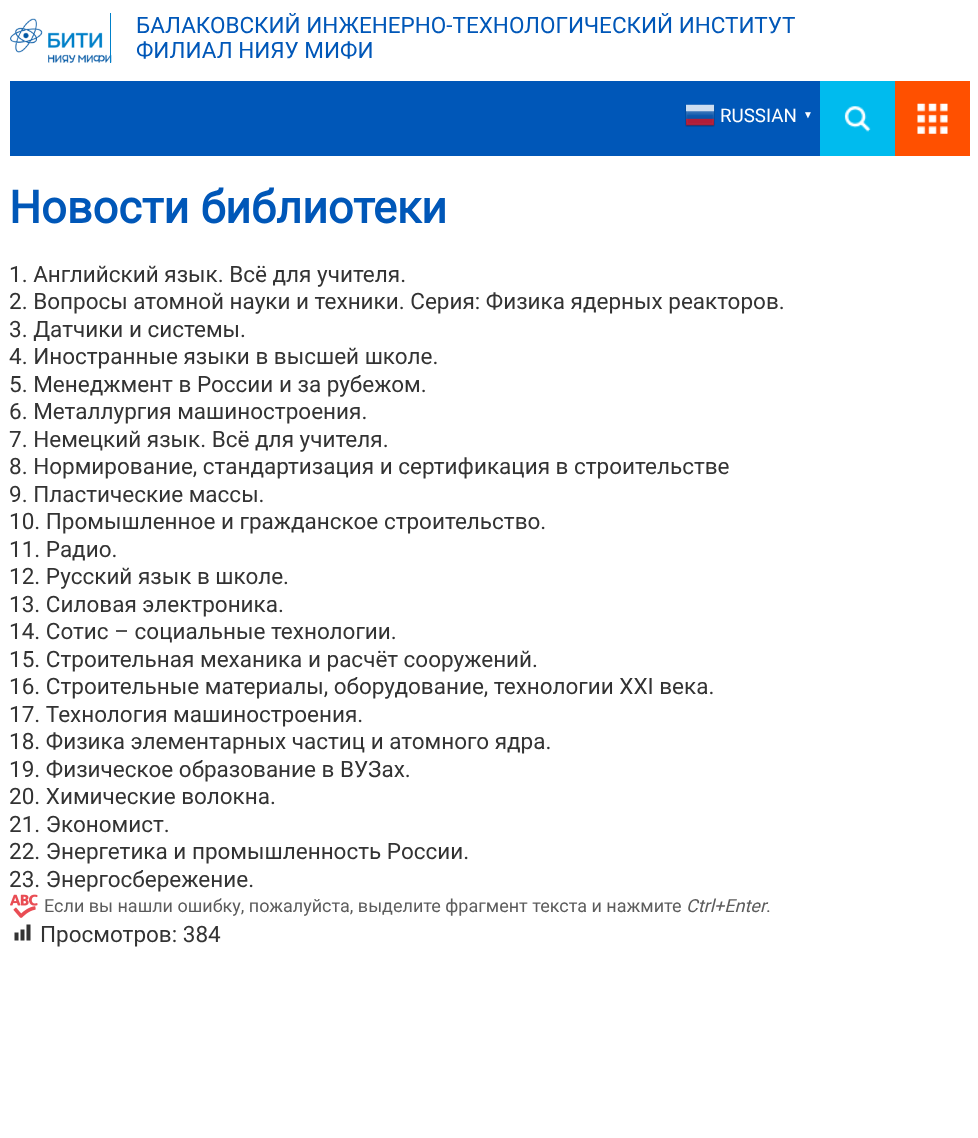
<svg xmlns="http://www.w3.org/2000/svg" width="978" height="1138" viewBox="0 0 978 1138">
  <style>
    .t1 { font: 22.5px Roboto; fill: #0057b8; }
    .t2 { font: 18.75px Roboto; fill: #fff; }
    .t3 { font: bold 10px Liberation Sans; fill: #fff; }
    .t4 { font: bold 45px Roboto; fill: #0057b8; }
    .t5 { font: 22.5px Roboto; fill: #333; }
    .t6 { font: 18px Roboto; fill: #5c5c5c; }
    .t7 { font: italic 18px Roboto; fill: #5c5c5c; }
  </style>
  <rect width="100%" height="100%" fill="#fff"/>
  <image x="10" y="18" width="102" height="45" href="images/1.png"/>
  <rect x="110" y="13" width="1" height="50" fill="#0080c9"/>
  <text x="136" y="33" class="t1">БАЛАКОВСКИЙ ИНЖЕНЕРНО-ТЕХНОЛОГИЧЕСКИЙ ИНСТИТУТ</text>
  <text x="136" y="58" class="t1">ФИЛИАЛ НИЯУ МИФИ</text>
  <rect x="10" y="81" width="810" height="75" fill="#0057b8"/>
  <image x="685" y="104" width="30" height="23" href="images/2.png"/>
  <text x="720" y="122" class="t2">RUSSIAN</text>
  <text x="803" y="118" class="t3">▼</text>
  <rect x="820" y="81" width="75" height="75" fill="#0be"/>
  <image x="844" y="106" width="27" height="26" href="images/3.png"/>
  <rect x="895" y="81" width="75" height="75" fill="#ff5000"/>
  <image x="917" y="103" width="31" height="31" href="images/4.png"/>
  <text x="9" y="223" class="t4">Новости библиотеки</text>
  <text x="9" y="282" class="t5">1. Английский язык. Всё для учителя.</text>
  <text x="9" y="309" class="t5">2. Вопросы атомной науки и техники. Серия: Физика ядерных реакторов.</text>
  <text x="9" y="337" class="t5">3. Датчики и системы.</text>
  <text x="9" y="364" class="t5">4. Иностранные языки в высшей школе.</text>
  <text x="9" y="392" class="t5">5. Менеджмент в России и за рубежом.</text>
  <text x="9" y="419" class="t5">6. Металлургия машиностроения.</text>
  <text x="9" y="447" class="t5">7. Немецкий язык. Всё для учителя.</text>
  <text x="9" y="474" class="t5">8. Нормирование, стандартизация и сертификация в строительстве</text>
  <text x="9" y="502" class="t5">9. Пластические массы.</text>
  <text x="9" y="529" class="t5">10. Промышленное и гражданское строительство.</text>
  <text x="9" y="557" class="t5">11. Радио.</text>
  <text x="9" y="584" class="t5">12. Русский язык в школе.</text>
  <text x="9" y="612" class="t5">13. Силовая электроника.</text>
  <text x="9" y="639" class="t5">14. Сотис – социальные технологии.</text>
  <text x="9" y="667" class="t5">15. Строительная механика и расчёт сооружений.</text>
  <text x="9" y="694" class="t5">16. Строительные материалы, оборудование, технологии XXI века.</text>
  <text x="9" y="722" class="t5">17. Технология машиностроения.</text>
  <text x="9" y="749" class="t5">18. Физика элементарных частиц и атомного ядра.</text>
  <text x="9" y="777" class="t5">19. Физическое образование в ВУЗах.</text>
  <text x="9" y="804" class="t5">20. Химические волокна.</text>
  <text x="9" y="832" class="t5">21. Экономист.</text>
  <text x="9" y="859" class="t5">22. Энергетика и промышленность России.</text>
  <text x="9" y="887" class="t5">23. Энергосбережение.</text>
  <image x="10" y="894" width="28" height="24" href="images/5.png"/>
  <text x="44" y="912" class="t6">Если вы нашли ошибку, пожалуйста, выделите фрагмент текста и нажмите</text>
  <text x="686" y="912" class="t7">Ctrl+Enter</text>
  <text x="766" y="912" class="t6">.</text>
  <image x="14" y="924" width="17" height="17" href="images/6.png"/>
  <text x="40" y="942" class="t5">Просмотров: 384</text>
</svg>
